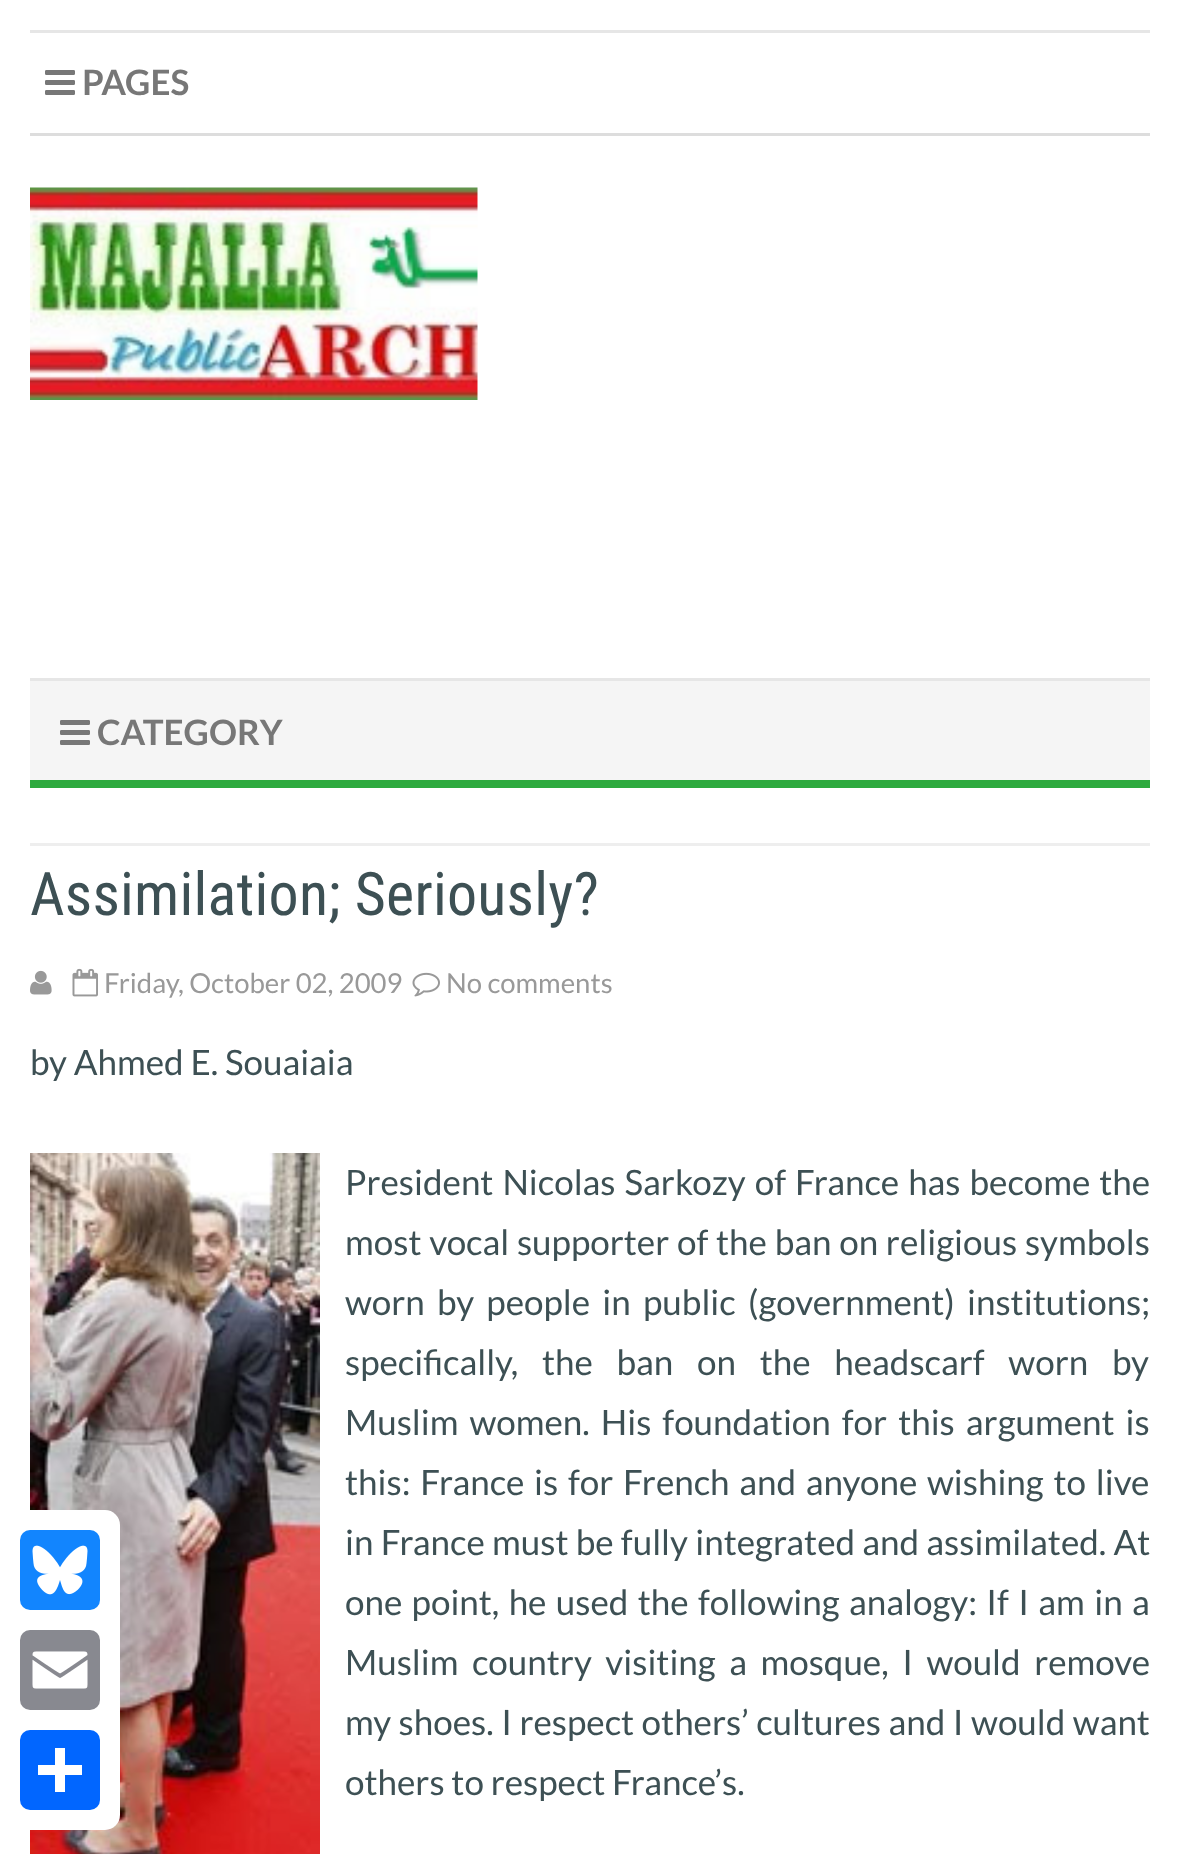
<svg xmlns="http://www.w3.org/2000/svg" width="1179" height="1854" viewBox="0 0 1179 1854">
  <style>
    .t1 { font: bold 35px Lato; fill: #777; }
    .t2 { font: 60px Roboto Condensed; letter-spacing: 0.25px; fill: #3d5054; }
    .t3 { font: 27.5px Lato; fill: #999; }
    .t4 { font: 35px Lato; fill: #3d5054; }
  </style>
  <rect width="100%" height="100%" fill="#fff"/>
  <rect x="30" y="30" width="1120" height="3" fill="#e6e6e6"/>
  <rect x="30" y="133" width="1120" height="3" fill="#ddd"/>
  <image x="45" y="70" width="30" height="25" href="images/1.png"/>
  <text x="82" y="95" class="t1">PAGES</text>
  <image x="30" y="187" width="448" height="213" href="images/2.png"/>
  <rect x="30" y="681" width="1120" height="99" fill="#f5f5f5"/>
  <rect x="30" y="678" width="1120" height="3" fill="#e6e6e6"/>
  <rect x="30" y="780" width="1120" height="8" fill="#2eaa3f"/>
  <image x="60" y="720" width="30" height="25" href="images/3.png"/>
  <text x="97" y="745" class="t1">CATEGORY</text>
  <rect x="30" y="843" width="1120" height="3" fill="#eee"/>
  <text x="30" y="915" class="t2">Assimilation; Seriously?</text>
  <image x="30" y="970" width="22" height="25" href="images/4.png"/>
  <image x="72" y="968" width="26" height="29" href="images/5.png"/>
  <text x="104" y="993" class="t3">Friday, October 02, 2009</text>
  <image x="412" y="972" width="28" height="25" href="images/6.png"/>
  <text x="446" y="993" class="t3">No comments</text>
  <text x="30" y="1075" class="t4">by Ahmed E. Souaiaia</text>
  <image x="30" y="1153" width="290" height="701" href="images/7.png"/>
  <text x="345" y="1195" word-spacing="2.25" class="t4">President Nicolas Sarkozy of France has become the</text>
  <text x="345" y="1255" word-spacing="1" class="t4">most vocal supporter of the ban on religious symbols</text>
  <text x="345" y="1315" word-spacing="5.5" class="t4">worn by people in public (government) institutions;</text>
  <text x="345" y="1375" word-spacing="17" class="t4">specifically, the ban on the headscarf worn by</text>
  <text x="345" y="1435" word-spacing="4.25" class="t4">Muslim women. His foundation for this argument is</text>
  <text x="345" y="1495" word-spacing="3" class="t4">this: France is for French and anyone wishing to live</text>
  <text x="345" y="1555" word-spacing="0.5" class="t4">in France must be fully integrated and assimilated. At</text>
  <text x="345" y="1615" word-spacing="2.6" class="t4">one point, he used the following analogy: If I am in a</text>
  <text x="345" y="1675" word-spacing="6.75" class="t4">Muslim country visiting a mosque, I would remove</text>
  <text x="345" y="1735" word-spacing="0.75" class="t4">my shoes. I respect others’ cultures and I would want</text>
  <text x="345" y="1795" class="t4">others to respect France’s.</text>
  <rect x="0" y="1510" width="120" height="320" rx="15" fill="#fff"/>
  <rect x="20" y="1530" width="80" height="80" rx="10" fill="#1285fe"/>
  <image x="32" y="1545" width="56" height="50" href="images/8.png"/>
  <rect x="20" y="1630" width="80" height="80" rx="10" fill="#888990"/>
  <image x="32" y="1651" width="56" height="38" href="images/9.png"/>
  <rect x="20" y="1730" width="80" height="80" rx="10" fill="#0166ff"/>
  <rect x="55" y="1748" width="10" height="44" fill="#fff"/>
  <rect x="38" y="1765" width="44" height="10" fill="#fff"/>
</svg>
